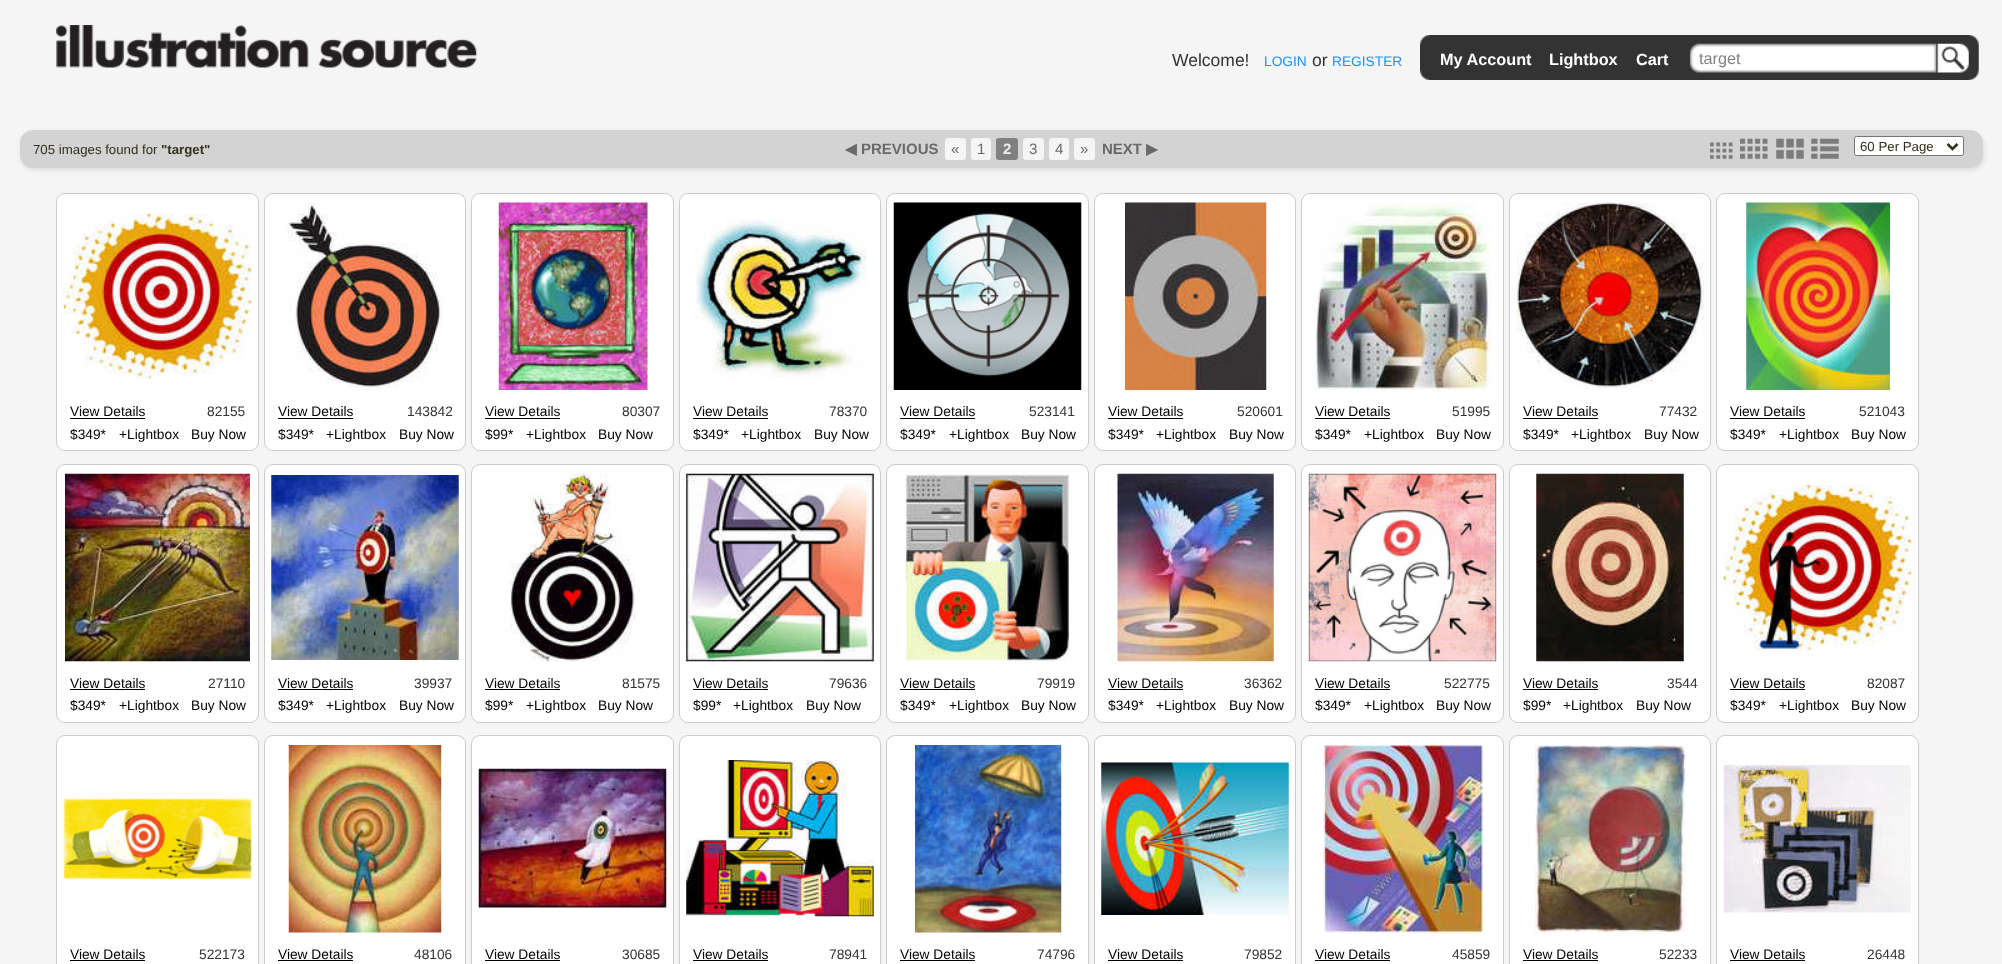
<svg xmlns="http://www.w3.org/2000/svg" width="2002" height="964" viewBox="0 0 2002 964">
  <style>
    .t1 { font: 17.5px Liberation Sans; fill: #333; }
    .t2 { font: 13.75px Liberation Sans; fill: #1e90ff; }
    .t3 { font: bold 16.25px Liberation Sans; fill: #fff; }
    .t4 { font: 16.25px Liberation Sans; fill: #808080; }
    .t5 { font: 13.25px Liberation Sans; fill: #342f1a; }
    .t6 { font: bold 13.25px Liberation Sans; fill: #342f1a; }
    .t7 { font: bold 15px DejaVu Sans; fill: #696969; }
    .t8 { font: bold 15px Liberation Sans; fill: #696969; }
    .t9 { font: 15px Liberation Sans; fill: #696969; }
    .t10 { font: bold 15px Liberation Sans; fill: #eee; }
    .t11 { font: 13.75px Liberation Sans; fill: #000; }
    .t12 { font: 13.75px Liberation Sans; fill: #333; }
  </style>
  <rect width="100%" height="100%" fill="#f5f5f5"/>
  <image x="56" y="25" width="421" height="43" href="images/1.png"/>
  <text x="1172" y="66" class="t1">Welcome!</text>
  <text x="1264" y="66" class="t2">LOGIN</text>
  <text x="1312" y="66" class="t1">or</text>
  <text x="1332" y="66" class="t2">REGISTER</text>
  <rect x="1440" y="35" width="523" height="45" fill="#333"/>
  <image x="1420" y="35" width="20" height="45" href="images/2.png"/>
  <text x="1440" y="65" class="t3">My Account</text>
  <text x="1549" y="65" class="t3">Lightbox</text>
  <text x="1636" y="65" class="t3">Cart</text>
  <image x="1963" y="35" width="16" height="45" href="images/4.png"/>
  <image x="1689" y="42" width="281" height="32" href="images/3.png"/>
  <text x="1699" y="64" class="t4">target</text>
  <rect x="21" y="133" width="1963" height="37" rx="13" fill="#0000001a" filter="blur(2.5px)"/>
  <rect x="20" y="130" width="1963" height="38" rx="13" fill="#d3d3d3"/>
  <text x="33" y="154" class="t5">705 images found for</text>
  <text x="161" y="154" class="t6">"target"</text>
  <text x="845" y="154" class="t7">◀</text>
  <text x="861" y="154" class="t8">PREVIOUS</text>
  <rect x="945" y="138" width="21" height="22" rx="3" fill="#f5f5f5"/>
  <text x="951" y="154" class="t9">«</text>
  <rect x="971" y="138" width="20" height="22" rx="3" fill="#f5f5f5"/>
  <text x="977" y="154" class="t9">1</text>
  <rect x="996" y="138" width="22" height="22" rx="3" fill="#808080"/>
  <text x="1003" y="154" class="t10">2</text>
  <rect x="1023" y="138" width="21" height="22" rx="3" fill="#f5f5f5"/>
  <text x="1029" y="154" class="t9">3</text>
  <rect x="1049" y="138" width="20" height="22" rx="3" fill="#f5f5f5"/>
  <text x="1055" y="154" class="t9">4</text>
  <rect x="1074" y="138" width="21" height="22" rx="3" fill="#f5f5f5"/>
  <text x="1080" y="154" class="t9">»</text>
  <text x="1102" y="154" class="t8">NEXT</text>
  <text x="1146" y="154" class="t7">▶</text>
  <image x="1710" y="142" width="23" height="17" href="images/5.png"/>
  <image x="1740" y="138" width="28" height="21" href="images/6.png"/>
  <image x="1776" y="138" width="28" height="21" href="images/7.png"/>
  <image x="1811" y="138" width="28" height="21" href="images/8.png"/>
  <rect x="1854.5" y="136.5" width="109" height="19" rx="2" fill="#fff" stroke="#767676"/>
  <path d="M1947.5 144L1952.5 149L1957.5 144" fill="none" stroke="#342f1a" stroke-width="2.5"/>
  <text x="1860" y="151" class="t5">60 Per Page</text>
  <rect x="56.5" y="193.5" width="202" height="257" rx="8.5" fill="#fff" stroke="#ccc"/>
  <image x="63" y="213" width="189" height="166" href="images/9.png"/>
  <text x="70" y="416" class="t11">View Details</text>
  <rect x="70" y="418" width="75" height="1" fill="#000"/>
  <text x="207" y="416" class="t12">82155</text>
  <text x="70" y="439" class="t11">$349*</text>
  <text x="119" y="439" class="t11">+Lightbox</text>
  <text x="191" y="439" class="t11">Buy Now</text>
  <rect x="264.5" y="193.5" width="201" height="257" rx="8.5" fill="#fff" stroke="#ccc"/>
  <image x="287" y="202" width="156" height="188" href="images/10.png"/>
  <text x="278" y="416" class="t11">View Details</text>
  <rect x="278" y="418" width="75" height="1" fill="#000"/>
  <text x="407" y="416" class="t12">143842</text>
  <text x="278" y="439" class="t11">$349*</text>
  <text x="326" y="439" class="t11">+Lightbox</text>
  <text x="399" y="439" class="t11">Buy Now</text>
  <rect x="471.5" y="193.5" width="202" height="257" rx="8.5" fill="#fff" stroke="#ccc"/>
  <image x="498" y="202" width="150" height="188" href="images/11.png"/>
  <text x="485" y="416" class="t11">View Details</text>
  <rect x="485" y="418" width="75" height="1" fill="#000"/>
  <text x="622" y="416" class="t12">80307</text>
  <text x="485" y="439" class="t11">$99*</text>
  <text x="526" y="439" class="t11">+Lightbox</text>
  <text x="598" y="439" class="t11">Buy Now</text>
  <rect x="679.5" y="193.5" width="201" height="257" rx="8.5" fill="#fff" stroke="#ccc"/>
  <image x="696" y="219" width="171" height="160" href="images/12.png"/>
  <text x="693" y="416" class="t11">View Details</text>
  <rect x="693" y="418" width="75" height="1" fill="#000"/>
  <text x="829" y="416" class="t12">78370</text>
  <text x="693" y="439" class="t11">$349*</text>
  <text x="741" y="439" class="t11">+Lightbox</text>
  <text x="814" y="439" class="t11">Buy Now</text>
  <rect x="886.5" y="193.5" width="202" height="257" rx="8.5" fill="#fff" stroke="#ccc"/>
  <image x="893" y="202" width="189" height="188" href="images/13.png"/>
  <text x="900" y="416" class="t11">View Details</text>
  <rect x="900" y="418" width="75" height="1" fill="#000"/>
  <text x="1029" y="416" class="t12">523141</text>
  <text x="900" y="439" class="t11">$349*</text>
  <text x="949" y="439" class="t11">+Lightbox</text>
  <text x="1021" y="439" class="t11">Buy Now</text>
  <rect x="1094.5" y="193.5" width="201" height="257" rx="8.5" fill="#fff" stroke="#ccc"/>
  <image x="1125" y="202" width="142" height="188" href="images/14.png"/>
  <text x="1108" y="416" class="t11">View Details</text>
  <rect x="1108" y="418" width="75" height="1" fill="#000"/>
  <text x="1237" y="416" class="t12">520601</text>
  <text x="1108" y="439" class="t11">$349*</text>
  <text x="1156" y="439" class="t11">+Lightbox</text>
  <text x="1229" y="439" class="t11">Buy Now</text>
  <rect x="1301.5" y="193.5" width="202" height="257" rx="8.5" fill="#fff" stroke="#ccc"/>
  <image x="1315" y="202" width="176" height="188" href="images/15.png"/>
  <text x="1315" y="416" class="t11">View Details</text>
  <rect x="1315" y="418" width="75" height="1" fill="#000"/>
  <text x="1452" y="416" class="t12">51995</text>
  <text x="1315" y="439" class="t11">$349*</text>
  <text x="1364" y="439" class="t11">+Lightbox</text>
  <text x="1436" y="439" class="t11">Buy Now</text>
  <rect x="1509.5" y="193.5" width="201" height="257" rx="8.5" fill="#fff" stroke="#ccc"/>
  <image x="1516" y="202" width="188" height="187" href="images/16.png"/>
  <text x="1523" y="416" class="t11">View Details</text>
  <rect x="1523" y="418" width="75" height="1" fill="#000"/>
  <text x="1659" y="416" class="t12">77432</text>
  <text x="1523" y="439" class="t11">$349*</text>
  <text x="1571" y="439" class="t11">+Lightbox</text>
  <text x="1644" y="439" class="t11">Buy Now</text>
  <rect x="1716.5" y="193.5" width="202" height="257" rx="8.5" fill="#fff" stroke="#ccc"/>
  <image x="1746" y="202" width="144" height="188" href="images/17.png"/>
  <text x="1730" y="416" class="t11">View Details</text>
  <rect x="1730" y="418" width="75" height="1" fill="#000"/>
  <text x="1859" y="416" class="t12">521043</text>
  <text x="1730" y="439" class="t11">$349*</text>
  <text x="1779" y="439" class="t11">+Lightbox</text>
  <text x="1851" y="439" class="t11">Buy Now</text>
  <rect x="56.5" y="464.5" width="202" height="258" rx="8.5" fill="#fff" stroke="#ccc"/>
  <image x="65" y="473" width="185" height="189" href="images/18.png"/>
  <text x="70" y="688" class="t11">View Details</text>
  <rect x="70" y="689" width="75" height="1" fill="#000"/>
  <text x="208" y="688" class="t12">27110</text>
  <text x="70" y="710" class="t11">$349*</text>
  <text x="119" y="710" class="t11">+Lightbox</text>
  <text x="191" y="710" class="t11">Buy Now</text>
  <rect x="264.5" y="464.5" width="201" height="258" rx="8.5" fill="#fff" stroke="#ccc"/>
  <image x="271" y="475" width="188" height="185" href="images/19.png"/>
  <text x="278" y="688" class="t11">View Details</text>
  <rect x="278" y="689" width="75" height="1" fill="#000"/>
  <text x="414" y="688" class="t12">39937</text>
  <text x="278" y="710" class="t11">$349*</text>
  <text x="326" y="710" class="t11">+Lightbox</text>
  <text x="399" y="710" class="t11">Buy Now</text>
  <rect x="471.5" y="464.5" width="202" height="258" rx="8.5" fill="#fff" stroke="#ccc"/>
  <image x="510" y="473" width="125" height="189" href="images/20.png"/>
  <text x="485" y="688" class="t11">View Details</text>
  <rect x="485" y="689" width="75" height="1" fill="#000"/>
  <text x="622" y="688" class="t12">81575</text>
  <text x="485" y="710" class="t11">$99*</text>
  <text x="526" y="710" class="t11">+Lightbox</text>
  <text x="598" y="710" class="t11">Buy Now</text>
  <rect x="679.5" y="464.5" width="201" height="258" rx="8.5" fill="#fff" stroke="#ccc"/>
  <image x="686" y="473" width="188" height="189" href="images/21.png"/>
  <text x="693" y="688" class="t11">View Details</text>
  <rect x="693" y="689" width="75" height="1" fill="#000"/>
  <text x="829" y="688" class="t12">79636</text>
  <text x="693" y="710" class="t11">$99*</text>
  <text x="733" y="710" class="t11">+Lightbox</text>
  <text x="806" y="710" class="t11">Buy Now</text>
  <rect x="886.5" y="464.5" width="202" height="258" rx="8.5" fill="#fff" stroke="#ccc"/>
  <image x="905" y="473" width="165" height="189" href="images/22.png"/>
  <text x="900" y="688" class="t11">View Details</text>
  <rect x="900" y="689" width="75" height="1" fill="#000"/>
  <text x="1037" y="688" class="t12">79919</text>
  <text x="900" y="710" class="t11">$349*</text>
  <text x="949" y="710" class="t11">+Lightbox</text>
  <text x="1021" y="710" class="t11">Buy Now</text>
  <rect x="1094.5" y="464.5" width="201" height="258" rx="8.5" fill="#fff" stroke="#ccc"/>
  <image x="1117" y="473" width="157" height="189" href="images/23.png"/>
  <text x="1108" y="688" class="t11">View Details</text>
  <rect x="1108" y="689" width="75" height="1" fill="#000"/>
  <text x="1244" y="688" class="t12">36362</text>
  <text x="1108" y="710" class="t11">$349*</text>
  <text x="1156" y="710" class="t11">+Lightbox</text>
  <text x="1229" y="710" class="t11">Buy Now</text>
  <rect x="1301.5" y="464.5" width="202" height="258" rx="8.5" fill="#fff" stroke="#ccc"/>
  <image x="1308" y="473" width="189" height="189" href="images/24.png"/>
  <text x="1315" y="688" class="t11">View Details</text>
  <rect x="1315" y="689" width="75" height="1" fill="#000"/>
  <text x="1444" y="688" class="t12">522775</text>
  <text x="1315" y="710" class="t11">$349*</text>
  <text x="1364" y="710" class="t11">+Lightbox</text>
  <text x="1436" y="710" class="t11">Buy Now</text>
  <rect x="1509.5" y="464.5" width="201" height="258" rx="8.5" fill="#fff" stroke="#ccc"/>
  <image x="1536" y="473" width="148" height="189" href="images/25.png"/>
  <text x="1523" y="688" class="t11">View Details</text>
  <rect x="1523" y="689" width="75" height="1" fill="#000"/>
  <text x="1667" y="688" class="t12">3544</text>
  <text x="1523" y="710" class="t11">$99*</text>
  <text x="1563" y="710" class="t11">+Lightbox</text>
  <text x="1636" y="710" class="t11">Buy Now</text>
  <rect x="1716.5" y="464.5" width="202" height="258" rx="8.5" fill="#fff" stroke="#ccc"/>
  <image x="1723" y="485" width="189" height="165" href="images/26.png"/>
  <text x="1730" y="688" class="t11">View Details</text>
  <rect x="1730" y="689" width="75" height="1" fill="#000"/>
  <text x="1867" y="688" class="t12">82087</text>
  <text x="1730" y="710" class="t11">$349*</text>
  <text x="1779" y="710" class="t11">+Lightbox</text>
  <text x="1851" y="710" class="t11">Buy Now</text>
  <rect x="56.5" y="735.5" width="202" height="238" rx="8.5" fill="#fff" stroke="#ccc"/>
  <image x="63" y="798" width="189" height="81" href="images/27.png"/>
  <text x="70" y="959" class="t11">View Details</text>
  <rect x="70" y="960" width="75" height="1" fill="#000"/>
  <text x="199" y="959" class="t12">522173</text>
  <rect x="264.5" y="735.5" width="201" height="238" rx="8.5" fill="#fff" stroke="#ccc"/>
  <image x="288" y="745" width="154" height="188" href="images/28.png"/>
  <text x="278" y="959" class="t11">View Details</text>
  <rect x="278" y="960" width="75" height="1" fill="#000"/>
  <text x="414" y="959" class="t12">48106</text>
  <rect x="471.5" y="735.5" width="202" height="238" rx="8.5" fill="#fff" stroke="#ccc"/>
  <image x="478" y="768" width="189" height="140" href="images/29.png"/>
  <text x="485" y="959" class="t11">View Details</text>
  <rect x="485" y="960" width="75" height="1" fill="#000"/>
  <text x="622" y="959" class="t12">30685</text>
  <rect x="679.5" y="735.5" width="201" height="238" rx="8.5" fill="#fff" stroke="#ccc"/>
  <image x="686" y="760" width="188" height="157" href="images/30.png"/>
  <text x="693" y="959" class="t11">View Details</text>
  <rect x="693" y="960" width="75" height="1" fill="#000"/>
  <text x="829" y="959" class="t12">78941</text>
  <rect x="886.5" y="735.5" width="202" height="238" rx="8.5" fill="#fff" stroke="#ccc"/>
  <image x="915" y="745" width="147" height="188" href="images/31.png"/>
  <text x="900" y="959" class="t11">View Details</text>
  <rect x="900" y="960" width="75" height="1" fill="#000"/>
  <text x="1037" y="959" class="t12">74796</text>
  <rect x="1094.5" y="735.5" width="201" height="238" rx="8.5" fill="#fff" stroke="#ccc"/>
  <image x="1101" y="762" width="188" height="153" href="images/32.png"/>
  <text x="1108" y="959" class="t11">View Details</text>
  <rect x="1108" y="960" width="75" height="1" fill="#000"/>
  <text x="1244" y="959" class="t12">79852</text>
  <rect x="1301.5" y="735.5" width="202" height="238" rx="8.5" fill="#fff" stroke="#ccc"/>
  <image x="1323" y="745" width="160" height="188" href="images/33.png"/>
  <text x="1315" y="959" class="t11">View Details</text>
  <rect x="1315" y="960" width="75" height="1" fill="#000"/>
  <text x="1452" y="959" class="t12">45859</text>
  <rect x="1509.5" y="735.5" width="201" height="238" rx="8.5" fill="#fff" stroke="#ccc"/>
  <image x="1535" y="745" width="151" height="188" href="images/34.png"/>
  <text x="1523" y="959" class="t11">View Details</text>
  <rect x="1523" y="960" width="75" height="1" fill="#000"/>
  <text x="1659" y="959" class="t12">52233</text>
  <rect x="1716.5" y="735.5" width="202" height="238" rx="8.5" fill="#fff" stroke="#ccc"/>
  <image x="1723" y="765" width="188" height="148" href="images/35.png"/>
  <text x="1730" y="959" class="t11">View Details</text>
  <rect x="1730" y="960" width="75" height="1" fill="#000"/>
  <text x="1867" y="959" class="t12">26448</text>
</svg>
